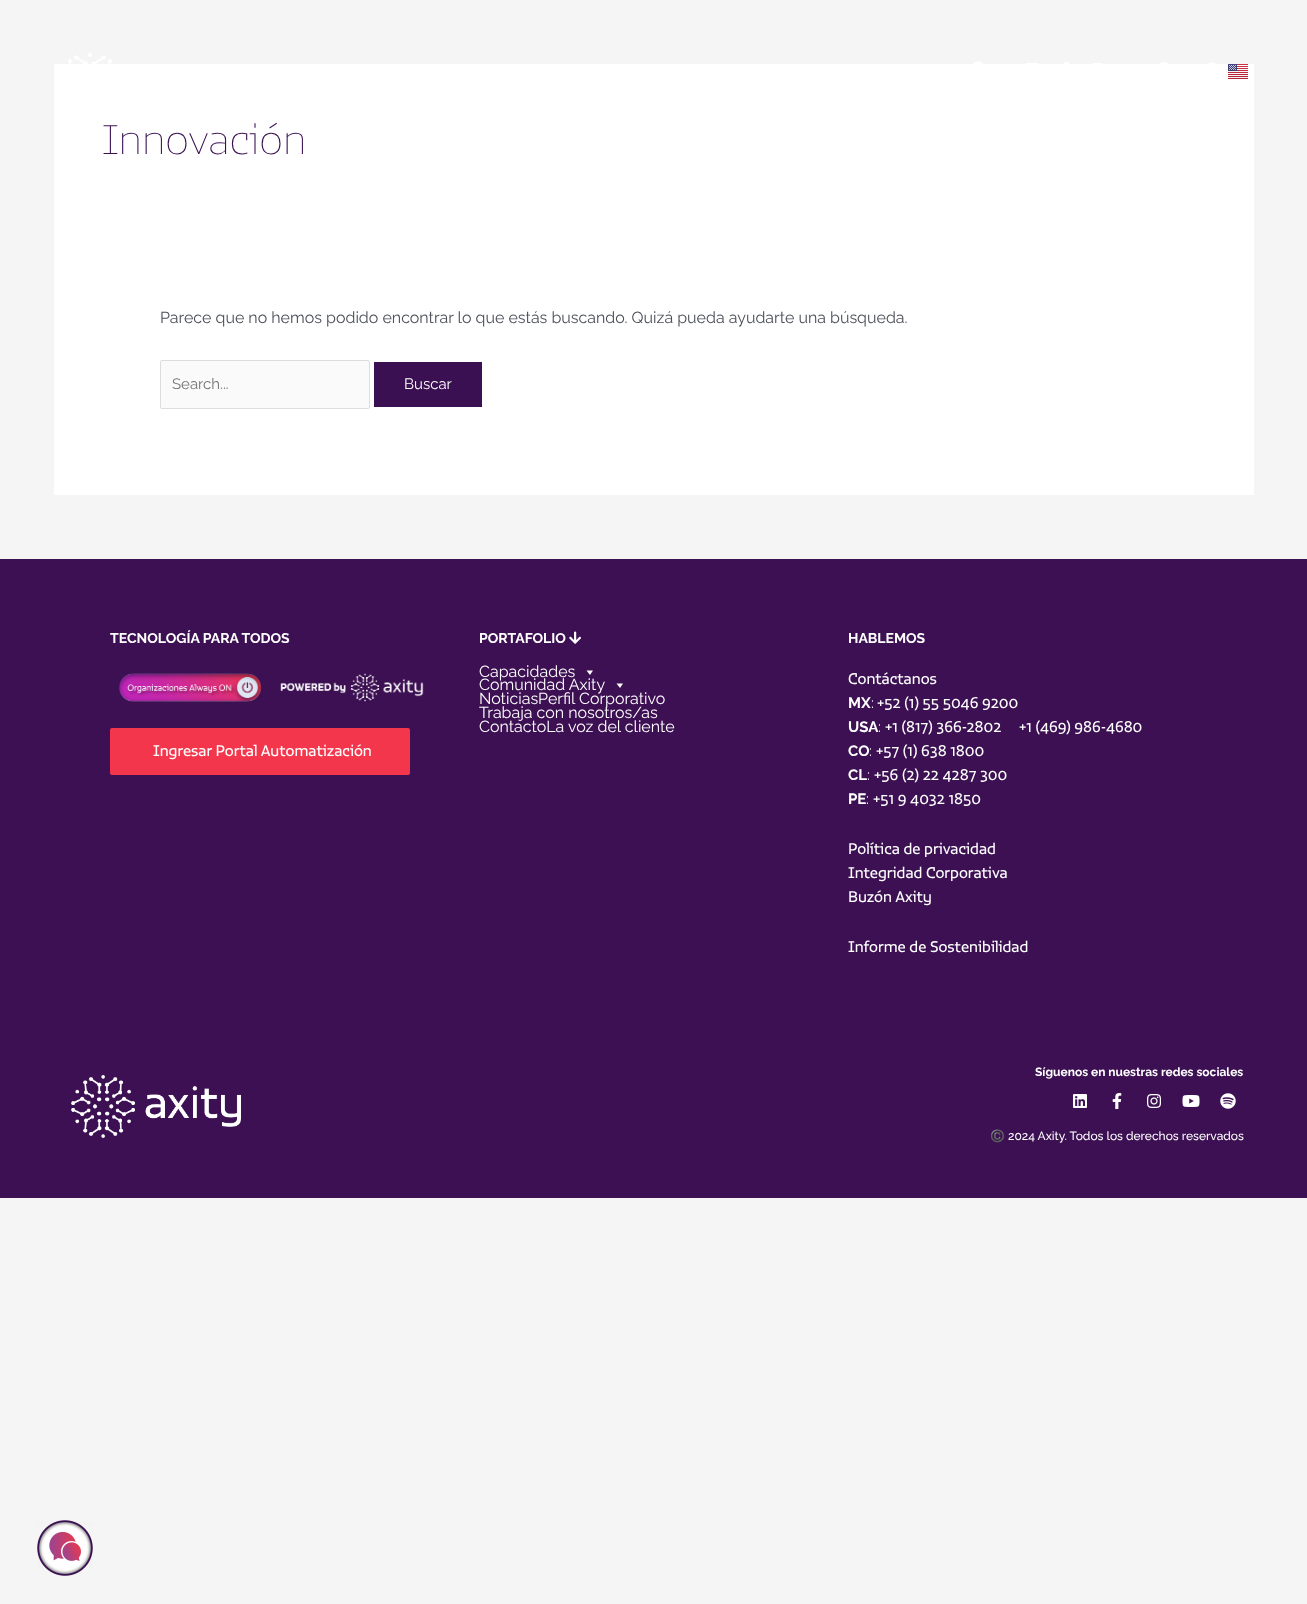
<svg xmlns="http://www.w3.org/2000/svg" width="1307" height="1604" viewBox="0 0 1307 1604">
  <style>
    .t1 { font: 100 40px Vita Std; fill: #3a1052; }
    .t2 { font: 16px Raleway; fill: #4b4f58; }
    .t3 { font: 15px Raleway; fill: #757575; }
    .t4 { font: 15px Raleway; fill: #fff; }
    .t5 { font: bold 14px Raleway; fill: #fff; }
    .t6 { font: 15px Vita Std; fill: #fff; }
    .t7 { font: 16px Raleway; fill: #fff; }
    .t8 { font: bold 15px Raleway; fill: #fff; }
    .t9 { font: bold 12px Raleway; fill: #fff; }
    .t10 { font: 12px Noto Color Emoji; fill: #fff; }
    .t11 { font: 500 12px Raleway; fill: #fff; }
  </style>
  <rect width="100%" height="100%" fill="#f5f5f5"/>
  <image x="68" y="53" width="44" height="11" href="images/1.png"/>
  <image x="973" y="61" width="10" height="3" href="images/2.png"/>
  <image x="1025" y="63" width="14" height="1" href="images/3.png"/>
  <image x="1064" y="62" width="5" height="2" href="images/4.png"/>
  <image x="1093" y="63" width="10" height="1" href="images/5.png"/>
  <image x="1160" y="62" width="8" height="2" href="images/6.png"/>
  <image x="1208" y="62" width="8" height="2" href="images/7.png"/>
  <rect x="54" y="64" width="1200" height="431" fill="#fff"/>
  <image x="1228" y="64" width="20" height="15" href="images/8.png"/>
  <text x="102" y="154" class="t1">Innovación</text>
  <text x="160" y="323" class="t2">Parece que no hemos podido encontrar lo que estás buscando. Quizá pueda ayudarte una búsqueda.</text>
  <rect x="160.5" y="360.5" width="209" height="48" rx="1.5" fill="#fafafa" stroke="#ddd"/>
  <text x="172" y="389" class="t3">Search...</text>
  <rect x="374" y="362" width="108" height="45" fill="#3a1052"/>
  <text x="404" y="389" class="t4">Buscar</text>
  <rect x="0" y="559" width="1307" height="639" fill="#3c1053"/>
  <text x="110" y="643" class="t5">TECNOLOGÍA PARA TODOS</text>
  <image x="119" y="673" width="305" height="29" href="images/9.png"/>
  <rect x="110" y="728" width="300" height="47" rx="2" fill="#f4364c"/>
  <text x="153" y="756" class="t6">Ingresar Portal Automatización</text>
  <image x="37" y="1520" width="56" height="56" href="images/10.png"/>
  <text x="479" y="643" class="t5">PORTAFOLIO</text>
  <image x="569" y="631" width="12" height="13" href="images/11.png"/>
  <text x="479" y="677" class="t7">Capacidades</text>
  <path d="M593 670.5L590 675L586.5 670.5Z" fill="#fff"/>
  <text x="479" y="690" class="t7">Comunidad Axity</text>
  <path d="M623 683.5L620 688L616.5 683.5Z" fill="#fff"/>
  <text x="479" y="704" class="t7">NoticiasPerfil Corporativo</text>
  <text x="479" y="718" class="t7">Trabaja con nosotros/as</text>
  <text x="479" y="732" class="t7">ContactoLa voz del cliente</text>
  <text x="848" y="643" class="t5">HABLEMOS</text>
  <text x="848" y="684" class="t6">Contáctanos</text>
  <text x="848" y="708" class="t8">MX</text>
  <text x="871" y="708" class="t4">:</text>
  <text x="877" y="708" class="t6">+52 (1) 55 5046 9200</text>
  <text x="848" y="732" class="t8">USA</text>
  <text x="878" y="732" class="t4">:</text>
  <text x="885" y="732" class="t6">+1 (817) 366-2802</text>
  <text x="1019" y="732" class="t6">+1 (469) 986-4680</text>
  <text x="848" y="756" class="t8">CO</text>
  <text x="869" y="756" class="t4">:</text>
  <text x="876" y="756" class="t6">+57 (1) 638 1800</text>
  <text x="848" y="780" class="t8">CL</text>
  <text x="867" y="780" class="t4">:</text>
  <text x="874" y="780" class="t6">+56 (2) 22 4287 300</text>
  <text x="848" y="804" class="t8">PE</text>
  <text x="866" y="804" class="t4">:</text>
  <text x="873" y="804" class="t6">+51 9 4032 1850</text>
  <text x="848" y="854" class="t6">Política de privacidad</text>
  <text x="848" y="878" class="t6">Integridad Corporativa</text>
  <text x="848" y="902" class="t6">Buzón Axity</text>
  <text x="848" y="952" class="t6">Informe de Sostenibilidad</text>
  <image x="71" y="1075" width="170" height="63" href="images/12.png"/>
  <text x="1035" y="1076" class="t9">Síguenos en nuestras redes sociales</text>
  <image x="1073" y="1094" width="14" height="14" href="images/13.png"/>
  <image x="1112" y="1093" width="10" height="16" href="images/14.png"/>
  <image x="1147" y="1094" width="14" height="14" href="images/15.png"/>
  <image x="1182" y="1095" width="18" height="12" href="images/16.png"/>
  <image x="1220" y="1093" width="16" height="16" href="images/17.png"/>
  <text x="990" y="1140" class="t10">©️</text>
  <text x="1008" y="1140" class="t11">2024 Axity. Todos los derechos reservados</text>
</svg>
